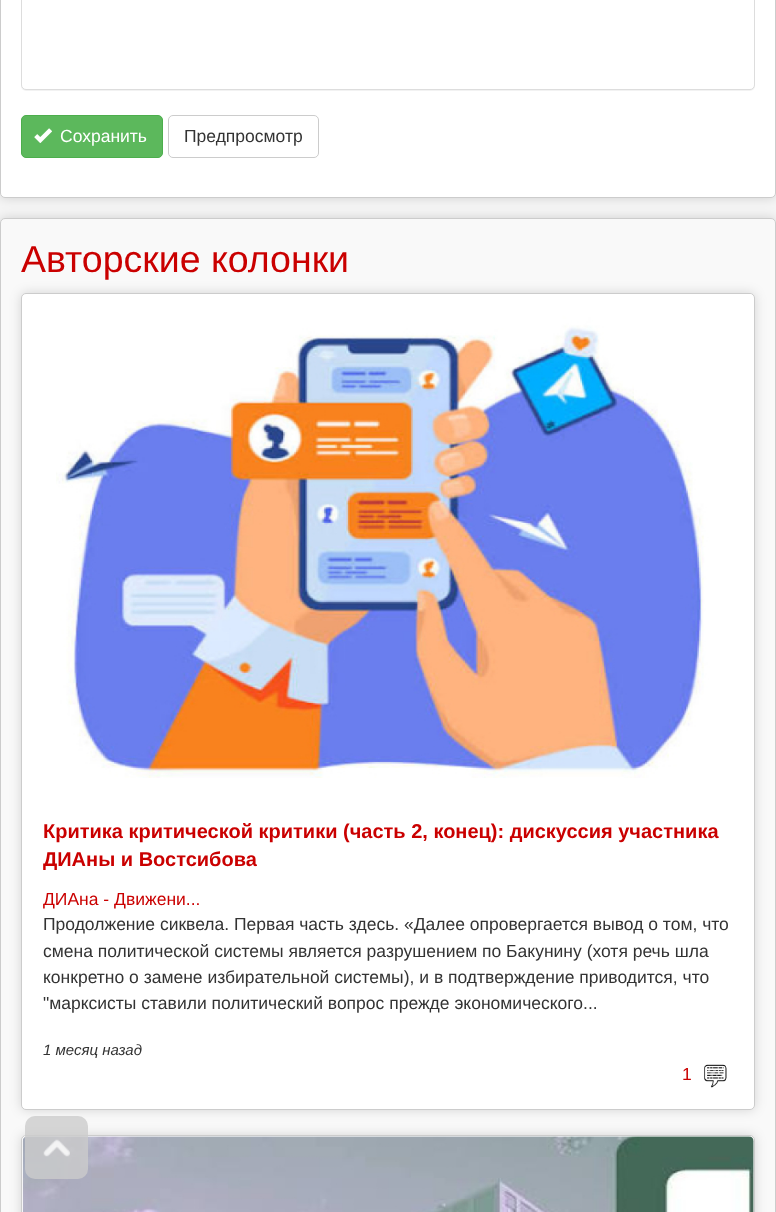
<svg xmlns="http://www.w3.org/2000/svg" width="776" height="1212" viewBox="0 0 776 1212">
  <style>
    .t1 { font: 17.5px Liberation Sans; fill: #fff; }
    .t2 { font: 17.5px Liberation Sans; fill: #333; }
    .t3 { font: 37.5px Liberation Sans; fill: #ca0000; }
    .t4 { font: bold 20px Liberation Sans; fill: #ca0000; }
    .t5 { font: 17.5px Liberation Sans; fill: #ca0000; }
    .t6 { font: italic 15px Liberation Sans; fill: #333; }
  </style>
  <rect width="100%" height="100%" fill="#f5f5f5"/>
  <rect x="0" y="-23" width="776" height="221" rx="5" fill="#00000026" filter="blur(6px)"/>
  <rect x="0.5" y="-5.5" width="775" height="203" rx="4.5" fill="#fff" stroke="#ccc"/>
  <rect x="21" y="-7" width="734" height="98" rx="5" fill="#0000000d" filter="blur(0.5px)"/>
  <rect x="21.5" y="-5.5" width="733" height="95" rx="4.5" fill="#fff" stroke="#ddd"/>
  <rect x="21.5" y="115.5" width="141" height="42" rx="4.5" fill="#5cb85c" stroke="#4cae4c"/>
  <image x="34" y="128" width="18" height="15" href="images/1.png"/>
  <text x="60" y="142" class="t1">Сохранить</text>
  <rect x="168.5" y="115.5" width="150" height="42" rx="4.5" fill="none" stroke="#ccc"/>
  <text x="184" y="142" class="t2">Предпросмотр</text>
  <rect x="0" y="218" width="776" height="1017" rx="5" fill="#00000026" filter="blur(6px)"/>
  <rect x="0.5" y="218.5" width="775" height="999" rx="4.5" fill="#f9f9f9" stroke="#ccc"/>
  <text x="21" y="272" class="t3">Авторские колонки</text>
  <rect x="21" y="293" width="734" height="817" rx="5" fill="#00000026" filter="blur(6px)"/>
  <rect x="21.5" y="293.5" width="733" height="816" rx="4.5" fill="#fff" stroke="#ccc"/>
  <image x="56" y="294" width="696" height="484" href="images/2.png"/>
  <text x="43" y="838" class="t4">Критика критической критики (часть 2, конец): дискуссия участника</text>
  <text x="43" y="866" class="t4">ДИАны и Востсибова</text>
  <text x="43" y="905" class="t5">ДИАна - Движени...</text>
  <text x="43" y="930" class="t2">Продолжение сиквела. Первая часть здесь. «Далее опровергается вывод о том, что</text>
  <text x="43" y="957" class="t2">смена политической системы является разрушением по Бакунину (хотя речь шла</text>
  <text x="43" y="983" class="t2">конкретно о замене избирательной системы), и в подтверждение приводится, что</text>
  <text x="43" y="1009" class="t2">"марксисты ставили политический вопрос прежде экономического...</text>
  <text x="43" y="1055" class="t6">1 месяц назад</text>
  <text x="682" y="1080" class="t5">1</text>
  <image x="704" y="1064" width="23" height="24" href="images/3.png"/>
  <rect x="21" y="1135" width="734" height="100" rx="5" fill="#00000026" filter="blur(6px)"/>
  <rect x="21.5" y="1135.5" width="733" height="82" rx="4.5" fill="#fff" stroke="#ccc"/>
  <image x="22" y="1136" width="732" height="76" href="images/4.png"/>
  <rect x="25" y="1116" width="63" height="63" rx="10" fill="#cccccccc"/>
  <image x="43" y="1139" width="27" height="18" href="images/5.png"/>
</svg>
